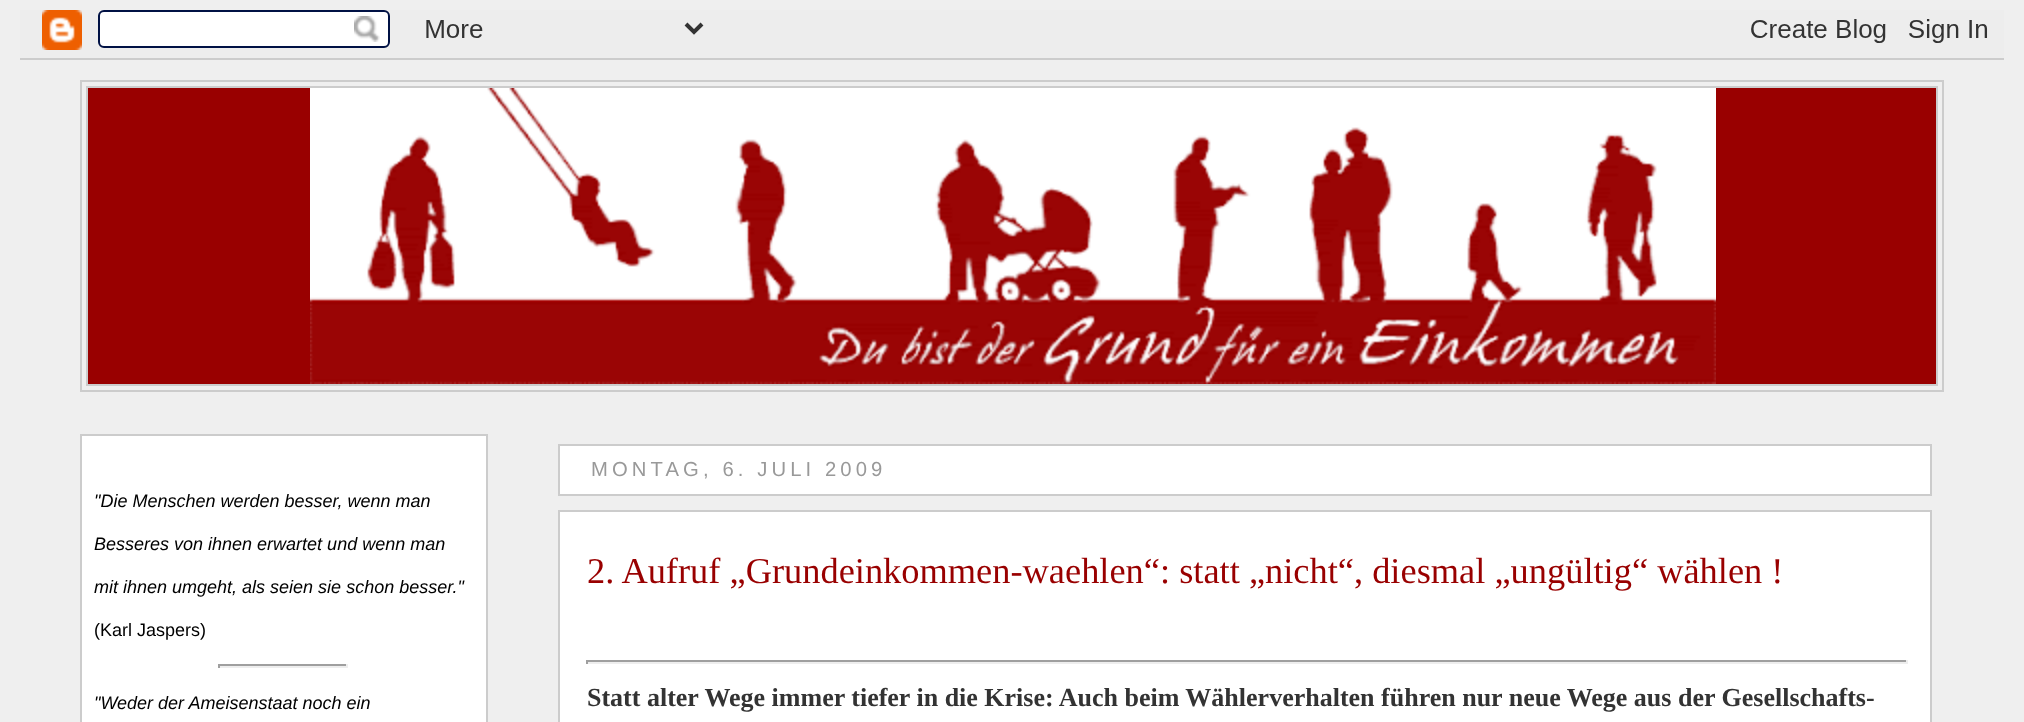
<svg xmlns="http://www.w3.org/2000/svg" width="2024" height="722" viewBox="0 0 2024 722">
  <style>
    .t1 { font: italic 18px Liberation Sans; fill: #000; }
    .t2 { font: 18px Liberation Sans; fill: #000; }
    .t3 { font: 20.25px Liberation Sans; letter-spacing: 4.1px; fill: #999; }
    .t4 { font: 36.4px Liberation Serif; fill: #900; }
    .t5 { font: bold 26px Liberation Serif; fill: #333; }
  </style>
  <rect width="100%" height="100%" fill="#efefef"/>
  <image x="20" y="10" width="1984" height="50" href="images/1.png"/>
  <rect x="81" y="81" width="1862" height="310" fill="none" stroke="#ccc" stroke-width="2"/>
  <rect x="87" y="87" width="1850" height="298" fill="#900" stroke="#ccc" stroke-width="2"/>
  <image x="310" y="88" width="1406" height="296" href="images/2.png"/>
  <rect x="81" y="435" width="406" height="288" fill="#fff" stroke="#ccc" stroke-width="2"/>
  <text x="94" y="507" class="t1">"Die Menschen werden besser, wenn man</text>
  <text x="94" y="550" class="t1">Besseres von ihnen erwartet und wenn man</text>
  <text x="94" y="593" class="t1">mit ihnen umgeht, als seien sie schon besser."</text>
  <text x="94" y="636" class="t2">(Karl Jaspers)</text>
  <rect x="218" y="664" width="130" height="2" fill="#9f9f9f"/>
  <rect x="346" y="664" width="2" height="4" fill="#eee"/>
  <rect x="218" y="666" width="130" height="2" fill="#eee"/>
  <rect x="218" y="664" width="2" height="4" fill="#9f9f9f"/>
  <text x="94" y="709" class="t1">"Weder der Ameisenstaat noch ein</text>
  <rect x="559" y="445" width="1372" height="50" fill="#fff" stroke="#ccc" stroke-width="2"/>
  <text x="591" y="476" class="t3">MONTAG, 6. JULI 2009</text>
  <rect x="559" y="511" width="1372" height="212" fill="#fff" stroke="#ccc" stroke-width="2"/>
  <text x="587" y="583" class="t4">2. Aufruf „Grundeinkommen-waehlen“: statt „nicht“, diesmal „ungültig“ wählen !</text>
  <rect x="586" y="660" width="1322" height="2" fill="#9f9f9f"/>
  <rect x="1906" y="660" width="2" height="4" fill="#eee"/>
  <rect x="586" y="662" width="1322" height="2" fill="#eee"/>
  <rect x="586" y="660" width="2" height="4" fill="#9f9f9f"/>
  <text x="587" y="706" class="t5">Statt alter Wege immer tiefer in die Krise: Auch beim Wählerverhalten führen nur neue Wege aus der Gesellschafts-</text>
</svg>
